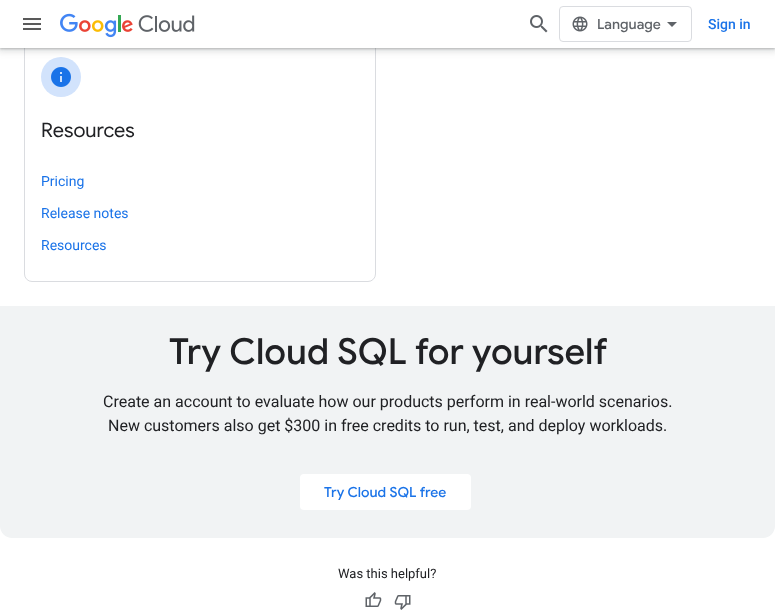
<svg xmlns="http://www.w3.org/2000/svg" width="775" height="615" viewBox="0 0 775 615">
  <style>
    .t1 { font: 500 14px Google Sans; fill: #5f6368; }
    .t2 { font: 500 14px Roboto; fill: #1a73e8; }
    .t3 { font: 20px Google Sans; fill: #202124; }
    .t4 { font: 14px Roboto; fill: #1a73e8; }
    .t5 { font: 500 36px Google Sans; fill: #202124; }
    .t6 { font: 16px Roboto; fill: #202124; }
    .t7 { font: 500 14px Google Sans; fill: #1a73e8; }
    .t8 { font: 13px Roboto; fill: #202124; }
  </style>
  <rect width="100%" height="100%" fill="#fff"/>
  <rect x="24.5" y="40.5" width="351" height="241" rx="7.5" fill="none" stroke="#dadce0"/>
  <circle cx="61" cy="77" r="20" fill="#d2e3fc"/>
  <rect x="-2" y="-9" width="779" height="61" fill="#3c404326" filter="blur(3px)"/>
  <rect x="0" y="-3" width="775" height="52" fill="#3c40434d" filter="blur(1px)"/>
  <rect x="0" y="0" width="775" height="48" fill="#fff"/>
  <image x="23" y="18" width="18" height="12" href="images/1.png"/>
  <image x="60" y="13" width="135" height="25" href="images/2.png"/>
  <image x="530" y="15" width="18" height="18" href="images/3.png"/>
  <rect x="559.5" y="6.5" width="132" height="35" rx="3.5" fill="none" stroke="#dadce0"/>
  <image x="572" y="16" width="16" height="16" href="images/4.png"/>
  <text x="597" y="29" class="t1">Language</text>
  <path d="M672 27L667 22H677Z" fill="#5f6368"/>
  <text x="708" y="29" class="t2">Sign in</text>
  <image x="51" y="67" width="20" height="20" href="images/5.png"/>
  <text x="41" y="137" class="t3">Resources</text>
  <text x="41" y="186" class="t4">Pricing</text>
  <text x="41" y="218" class="t4">Release notes</text>
  <text x="41" y="250" class="t4">Resources</text>
  <path d="M0 306H775V526C775 532.5 769.5 538 763 538H12C5.5 538 0 532.5 0 526Z" fill="#f1f3f4"/>
  <text x="169" y="364" class="t5">Try Cloud SQL for yourself</text>
  <text x="103" y="407" class="t6">Create an account to evaluate how our products perform in real-world scenarios.</text>
  <text x="108" y="431" class="t6">New customers also get $300 in free credits to run, test, and deploy workloads.</text>
  <rect x="300" y="474" width="171" height="36" rx="4" fill="#fff"/>
  <text x="324" y="497" class="t7">Try Cloud SQL free</text>
  <text x="338" y="578" class="t8">Was this helpful?</text>
  <image x="365" y="592" width="17" height="15" href="images/6.png"/>
  <image x="394" y="595" width="17" height="15" href="images/7.png"/>
</svg>
